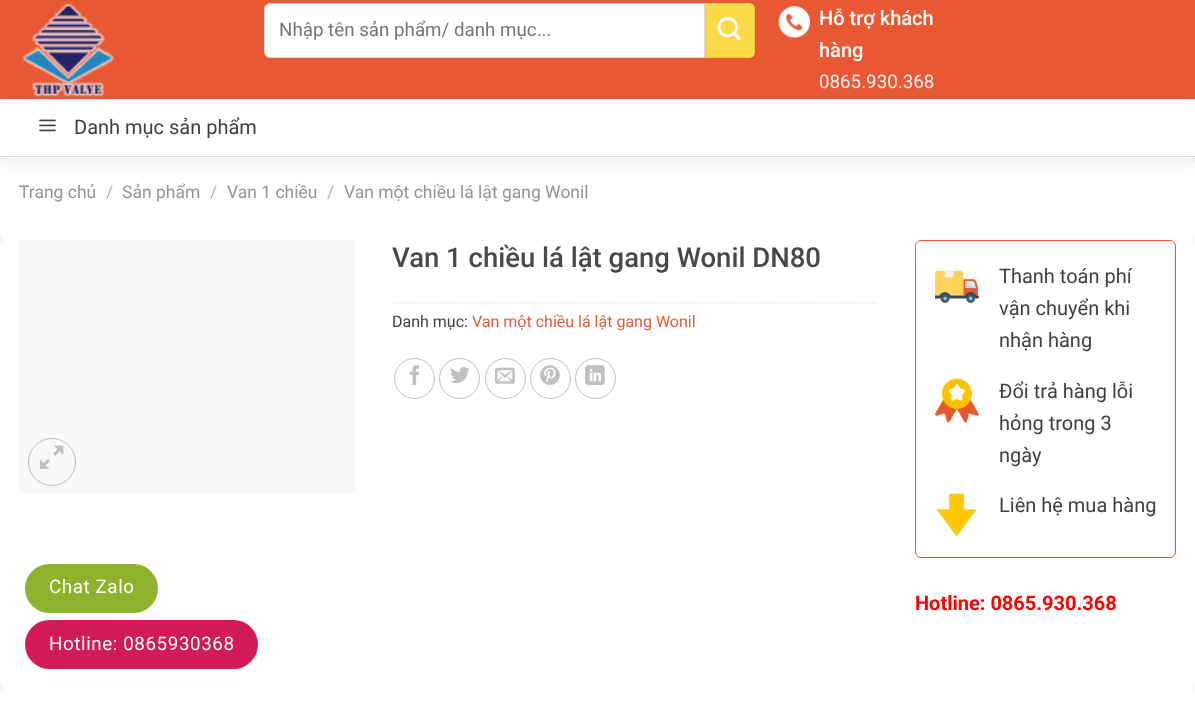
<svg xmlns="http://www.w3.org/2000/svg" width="1195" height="701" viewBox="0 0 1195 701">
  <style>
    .t1 { font: 18.75px Roboto; fill: #757575; }
    .t2 { font: 500 20px Roboto; fill: #fff; }
    .t3 { font: 18.75px Roboto; fill: #f1f1f1; }
    .t4 { font: 20px Roboto; fill: #3f3f3f; }
    .t5 { font: 17.5px Roboto; fill: #949494; }
    .t6 { font: 17.5px Roboto; fill: #b2b2b2; }
    .t7 { font: 500 27.5px Roboto; fill: #484848; }
    .t8 { font: 16px Roboto; fill: #3f3f3f; }
    .t9 { font: 16px Roboto; fill: #e85933; }
    .t10 { font: bold 20px Roboto; fill: #f00; }
    .t11 { font: 18.75px Roboto; letter-spacing: 0.6px; fill: #fff; }
  </style>
  <rect width="100%" height="100%" fill="#f4f4f4"/>
  <rect x="0" y="0" width="1195" height="99" fill="#e85933"/>
  <rect x="0" y="158" width="1195" height="82" rx="6" fill="#fff"/>
  <rect x="0" y="106" width="1195" height="59" fill="#0000000d" filter="blur(6px)"/>
  <image x="22" y="3" width="92" height="94" href="images/1.png"/>
  <path d="M270 3.5H704.5V57.5H270C267 57.5 264.5 55 264.5 52V9C264.5 6 267 3.5 270 3.5Z" fill="#fff" stroke="#ddd"/>
  <text x="279" y="36" class="t1">Nhập tên sản phẩm/ danh mục...</text>
  <path d="M705 3H749C752.5 3 755 5.5 755 9V52C755 55.5 752.5 58 749 58H705Z" fill="#fbd947"/>
  <rect x="705.5" y="3.5" width="49" height="54" fill="none" stroke="#0000000d"/>
  <image x="717" y="16" width="24" height="25" href="images/2.png"/>
  <image x="778" y="6" width="32" height="32" href="images/3.png"/>
  <text x="819" y="25" class="t2">Hỗ trợ khách</text>
  <text x="819" y="57" class="t2">hàng</text>
  <text x="819" y="88" class="t3">0865.930.368</text>
  <rect x="0" y="99" width="1195" height="59" fill="#fff"/>
  <rect x="0" y="156" width="1195" height="1" fill="#ddd"/>
  <image x="39" y="119" width="17" height="13" href="images/4.png"/>
  <text x="74" y="134" class="t4">Danh mục sản phẩm</text>
  <text x="19" y="198" class="t5">Trang chủ</text>
  <text x="106" y="198" class="t6">/</text>
  <text x="122" y="198" class="t5">Sản phẩm</text>
  <text x="210" y="198" class="t6">/</text>
  <text x="227" y="198" class="t5">Van 1 chiều</text>
  <text x="327" y="198" class="t6">/</text>
  <text x="344" y="198" class="t5">Van một chiều lá lật gang Wonil</text>
  <rect x="0" y="240" width="1195" height="448" rx="6" fill="#fff"/>
  <rect x="0" y="240" width="896" height="290" rx="6" fill="#fff"/>
  <rect x="19" y="240" width="336" height="253" fill="#f8f8f8"/>
  <circle cx="52" cy="462" r="23.5" fill="none" stroke="#c0c0c0"/>
  <image x="40" y="445" width="24" height="24" href="images/5.png"/>
  <text x="392" y="267" class="t7">Van 1 chiều lá lật gang Wonil DN80</text>
  <path d="M392.5 303H877.5" fill="none" stroke="#ddd" stroke-width="1.2" stroke-dasharray="1.25 1.25"/>
  <text x="392" y="327" class="t8">Danh mục:</text>
  <text x="472" y="327" class="t9">Van một chiều lá lật gang Wonil</text>
  <circle cx="414.5" cy="378.5" r="20" fill="none" stroke="#c0c0c0"/>
  <image x="410" y="365" width="10" height="20" href="images/6.png"/>
  <circle cx="459.5" cy="378.5" r="20" fill="none" stroke="#c0c0c0"/>
  <image x="450" y="367" width="20" height="17" href="images/7.png"/>
  <circle cx="505.5" cy="378.5" r="20" fill="none" stroke="#c0c0c0"/>
  <image x="495" y="367" width="20" height="17" href="images/8.png"/>
  <circle cx="550.5" cy="378.5" r="20" fill="none" stroke="#c0c0c0"/>
  <image x="540" y="365" width="20" height="20" href="images/9.png"/>
  <circle cx="595.5" cy="378.5" r="20" fill="none" stroke="#c0c0c0"/>
  <image x="585" y="365" width="20" height="20" href="images/10.png"/>
  <rect x="915.5" y="240.5" width="260" height="317" rx="5.5" fill="none" stroke="#e85933"/>
  <image x="935" y="270" width="44" height="34" href="images/11.png"/>
  <text x="999" y="283" class="t4">Thanh toán phí</text>
  <text x="999" y="315" class="t4">vận chuyển khi</text>
  <text x="999" y="347" class="t4">nhận hàng</text>
  <image x="935" y="378" width="44" height="45" href="images/12.png"/>
  <text x="999" y="398" class="t4">Đổi trả hàng lỗi</text>
  <text x="999" y="430" class="t4">hỏng trong 3</text>
  <text x="999" y="462" class="t4">ngày</text>
  <image x="936" y="493" width="41" height="44" href="images/13.png"/>
  <text x="999" y="512" class="t4">Liên hệ mua hàng</text>
  <text x="915" y="610" class="t10">Hotline: 0865.930.368</text>
  <rect x="0" y="688" width="1195" height="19" rx="6" fill="#fff"/>
  <rect x="25" y="564" width="133" height="49" rx="24.5" fill="#8eb22b"/>
  <text x="49" y="593" class="t11">Chat Zalo</text>
  <rect x="25" y="620" width="233" height="49" rx="24.5" fill="#d11a59"/>
  <text x="49" y="650" class="t11">Hotline: 0865930368</text>
</svg>
